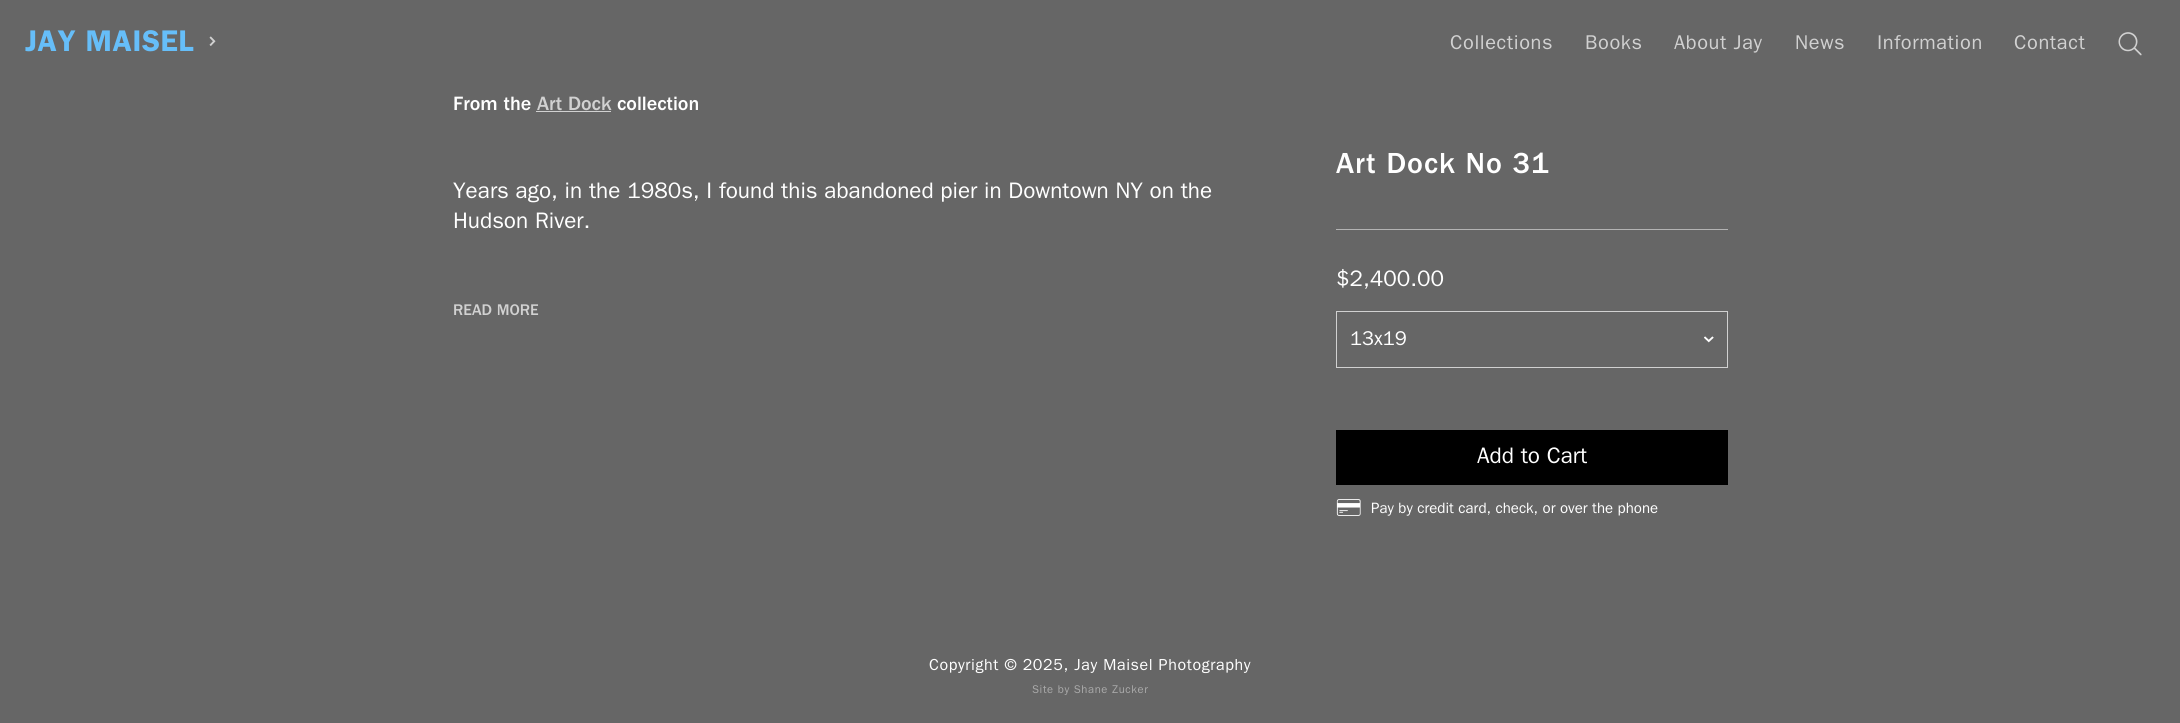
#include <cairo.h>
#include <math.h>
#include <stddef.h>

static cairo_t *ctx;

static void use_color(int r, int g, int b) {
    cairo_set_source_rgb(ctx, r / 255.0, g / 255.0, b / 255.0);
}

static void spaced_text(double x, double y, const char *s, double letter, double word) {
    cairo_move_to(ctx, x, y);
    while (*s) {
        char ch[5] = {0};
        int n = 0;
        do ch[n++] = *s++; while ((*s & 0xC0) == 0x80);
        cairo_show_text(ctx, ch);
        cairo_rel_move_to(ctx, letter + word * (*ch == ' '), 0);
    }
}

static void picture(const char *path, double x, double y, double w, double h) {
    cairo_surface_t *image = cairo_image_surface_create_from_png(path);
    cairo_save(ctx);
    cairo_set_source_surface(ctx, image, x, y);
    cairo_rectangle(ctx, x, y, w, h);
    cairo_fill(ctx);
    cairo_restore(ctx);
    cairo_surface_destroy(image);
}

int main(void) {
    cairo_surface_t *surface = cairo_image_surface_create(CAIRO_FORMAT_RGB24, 2180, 723);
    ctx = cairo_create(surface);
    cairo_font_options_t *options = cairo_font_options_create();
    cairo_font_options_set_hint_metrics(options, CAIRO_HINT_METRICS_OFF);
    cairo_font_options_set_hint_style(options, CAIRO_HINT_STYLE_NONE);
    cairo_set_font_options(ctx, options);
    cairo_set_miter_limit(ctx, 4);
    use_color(102, 102, 102);
    cairo_paint(ctx);
    cairo_select_font_face(ctx, "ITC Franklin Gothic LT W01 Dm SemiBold", CAIRO_FONT_SLANT_NORMAL, CAIRO_FONT_WEIGHT_NORMAL);
    cairo_set_font_size(ctx, 30);
    use_color(102, 190, 249);
    spaced_text(25, 51, "JAY MAISEL", 0.6, 0);
    picture("img1.png", 209, 36, 7, 10);
    cairo_select_font_face(ctx, "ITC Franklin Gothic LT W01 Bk", CAIRO_FONT_SLANT_NORMAL, CAIRO_FONT_WEIGHT_NORMAL);
    cairo_set_font_size(ctx, 20);
    use_color(209, 209, 209);
    spaced_text(1450, 49, "Collections", 0.6, 0);
    spaced_text(1585, 49, "Books", 0.6, 0);
    spaced_text(1674, 49, "About Jay", 0.6, 0);
    spaced_text(1795, 49, "News", 0.6, 0);
    spaced_text(1877, 49, "Information", 0.6, 0);
    spaced_text(2014, 49, "Contact", 0.6, 0);
    picture("img2.png", 2118, 32, 24, 24);
    cairo_select_font_face(ctx, "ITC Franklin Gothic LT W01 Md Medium", CAIRO_FONT_SLANT_NORMAL, CAIRO_FONT_WEIGHT_NORMAL);
    use_color(255, 255, 255);
    cairo_move_to(ctx, 453, 110);
    cairo_show_text(ctx, "From the");
    use_color(209, 209, 209);
    cairo_move_to(ctx, 537, 110);
    cairo_show_text(ctx, "Art Dock");
    cairo_rectangle(ctx, 536, 111, 75, 1);
    cairo_fill(ctx);
    use_color(255, 255, 255);
    cairo_move_to(ctx, 617, 110);
    cairo_show_text(ctx, "collection");
    cairo_select_font_face(ctx, "ITC Franklin Gothic LT W01 Bk", CAIRO_FONT_SLANT_NORMAL, CAIRO_FONT_WEIGHT_NORMAL);
    cairo_set_font_size(ctx, 22.5);
    cairo_move_to(ctx, 453, 198);
    cairo_show_text(ctx, "Years ago, in the 1980s, I found this abandoned pier in Downtown NY on the");
    cairo_move_to(ctx, 453, 228);
    cairo_show_text(ctx, "Hudson River.");
    cairo_select_font_face(ctx, "ITC Franklin Gothic LT W01 Md Medium", CAIRO_FONT_SLANT_NORMAL, CAIRO_FONT_WEIGHT_NORMAL);
    cairo_set_font_size(ctx, 16);
    use_color(209, 209, 209);
    cairo_move_to(ctx, 453, 315);
    cairo_show_text(ctx, "READ MORE");
    use_color(179, 179, 179);
    cairo_rectangle(ctx, 1336, 229, 392, 1);
    cairo_fill(ctx);
    cairo_set_font_size(ctx, 30);
    use_color(255, 255, 255);
    spaced_text(1336, 173, "Art Dock No 31", 1, 0);
    cairo_select_font_face(ctx, "ITC Franklin Gothic LT W01 Bk", CAIRO_FONT_SLANT_NORMAL, CAIRO_FONT_WEIGHT_NORMAL);
    cairo_set_font_size(ctx, 22.5);
    cairo_move_to(ctx, 1336, 286);
    cairo_show_text(ctx, "$2,400.00");
    picture("img3.png", 1704, 336, 10, 7);
    cairo_rectangle(ctx, 1336.5, 311.5, 391, 56);
    use_color(209, 209, 209);
    cairo_set_line_width(ctx, 1);
    cairo_stroke(ctx);
    cairo_set_font_size(ctx, 20);
    use_color(255, 255, 255);
    cairo_move_to(ctx, 1350, 345);
    cairo_show_text(ctx, "13x19");
    use_color(0, 0, 0);
    cairo_rectangle(ctx, 1336, 430, 392, 55);
    cairo_fill(ctx);
    cairo_set_font_size(ctx, 22.5);
    use_color(255, 255, 255);
    cairo_move_to(ctx, 1477, 463);
    cairo_show_text(ctx, "Add to Cart");
    picture("img4.png", 1336, 499, 25, 17);
    cairo_set_font_size(ctx, 15);
    cairo_move_to(ctx, 1371, 513);
    cairo_show_text(ctx, "Pay by credit card, check, or over the phone");
    cairo_set_font_size(ctx, 16);
    spaced_text(929, 670, "Copyright © 2025, Jay Maisel Photography", 0.6, 0);
    cairo_set_font_size(ctx, 11.25);
    use_color(170, 170, 170);
    spaced_text(1032, 693, "Site by Shane Zucker", 0.6, 0);
    cairo_surface_write_to_png(surface, "result.png");
    cairo_font_options_destroy(options);
    cairo_destroy(ctx);
    cairo_surface_destroy(surface);
    return 0;
}
